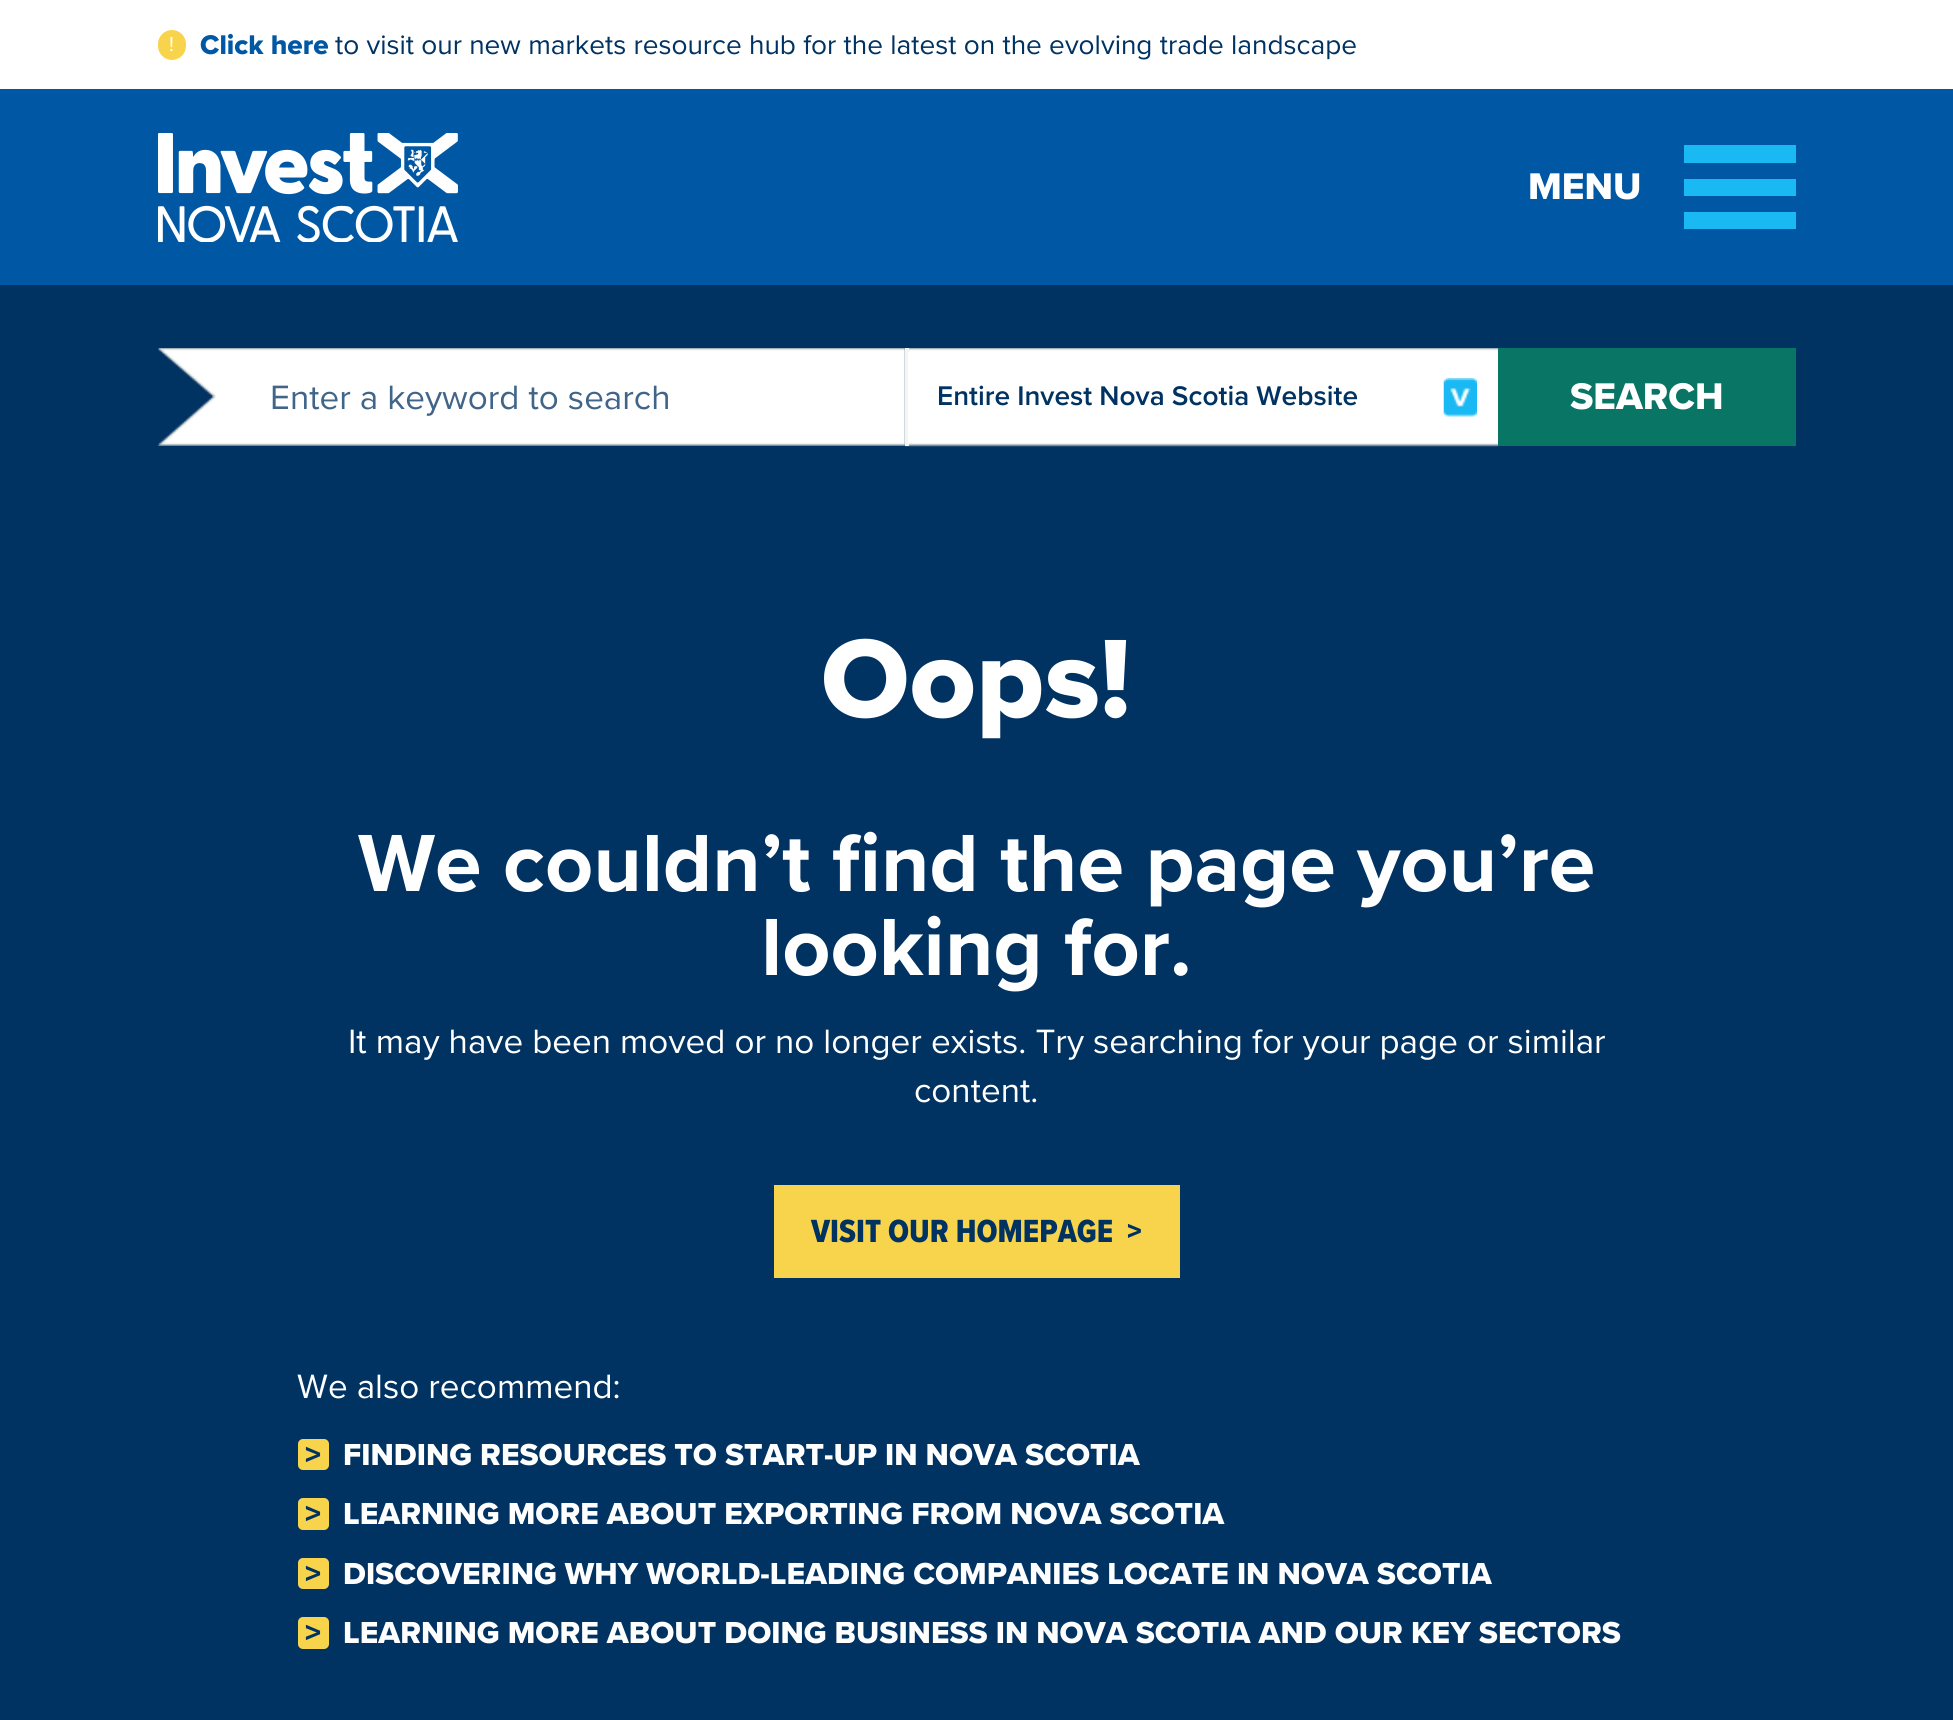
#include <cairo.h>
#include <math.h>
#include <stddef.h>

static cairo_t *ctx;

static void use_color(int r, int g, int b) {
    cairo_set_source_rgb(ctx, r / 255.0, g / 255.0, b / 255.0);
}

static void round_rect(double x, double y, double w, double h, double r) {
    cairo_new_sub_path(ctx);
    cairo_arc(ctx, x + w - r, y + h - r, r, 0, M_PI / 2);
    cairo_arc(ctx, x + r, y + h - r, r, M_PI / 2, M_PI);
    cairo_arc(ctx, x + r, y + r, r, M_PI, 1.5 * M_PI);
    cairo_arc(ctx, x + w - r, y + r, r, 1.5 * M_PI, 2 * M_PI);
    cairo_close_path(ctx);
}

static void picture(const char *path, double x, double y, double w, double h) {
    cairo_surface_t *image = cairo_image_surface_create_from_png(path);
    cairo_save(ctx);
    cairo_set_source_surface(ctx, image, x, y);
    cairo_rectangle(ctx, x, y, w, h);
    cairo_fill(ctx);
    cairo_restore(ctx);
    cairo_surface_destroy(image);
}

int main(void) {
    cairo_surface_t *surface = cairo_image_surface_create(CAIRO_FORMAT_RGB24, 1953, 1720);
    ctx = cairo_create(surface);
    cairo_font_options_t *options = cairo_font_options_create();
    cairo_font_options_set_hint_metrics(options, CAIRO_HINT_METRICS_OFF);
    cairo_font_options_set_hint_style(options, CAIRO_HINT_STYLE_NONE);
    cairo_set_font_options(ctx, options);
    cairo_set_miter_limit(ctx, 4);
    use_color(0, 50, 98);
    cairo_paint(ctx);
    use_color(255, 255, 255);
    cairo_rectangle(ctx, 0, 0, 1953, 89);
    cairo_fill(ctx);
    use_color(248, 212, 76);
    round_rect(158, 30, 28, 30, 14);
    cairo_fill(ctx);
    cairo_select_font_face(ctx, "Proxima Nova", CAIRO_FONT_SLANT_NORMAL, CAIRO_FONT_WEIGHT_NORMAL);
    cairo_set_font_size(ctx, 21);
    use_color(255, 255, 255);
    cairo_move_to(ctx, 169, 51);
    cairo_show_text(ctx, "!");
    cairo_select_font_face(ctx, "Proxima Nova ExtraBold", CAIRO_FONT_SLANT_NORMAL, CAIRO_FONT_WEIGHT_NORMAL);
    cairo_set_font_size(ctx, 28);
    use_color(0, 88, 164);
    cairo_move_to(ctx, 200, 54);
    cairo_show_text(ctx, "Click here");
    cairo_select_font_face(ctx, "Proxima Nova", CAIRO_FONT_SLANT_NORMAL, CAIRO_FONT_WEIGHT_NORMAL);
    use_color(0, 50, 98);
    cairo_move_to(ctx, 335, 54);
    cairo_show_text(ctx, "to visit our new markets resource hub for the latest on the evolving trade landscape");
    use_color(0, 88, 164);
    cairo_rectangle(ctx, 0, 89, 1953, 196);
    cairo_fill(ctx);
    picture("img1.png", 158, 133, 300, 109);
    cairo_select_font_face(ctx, "Proxima Nova ExtraBold", CAIRO_FONT_SLANT_NORMAL, CAIRO_FONT_WEIGHT_NORMAL);
    cairo_set_font_size(ctx, 38.5);
    use_color(255, 255, 255);
    cairo_move_to(ctx, 1528, 199);
    cairo_show_text(ctx, "MENU");
    use_color(27, 185, 244);
    cairo_rectangle(ctx, 1684, 145, 112, 18);
    cairo_fill(ctx);
    cairo_rectangle(ctx, 1684, 179, 112, 17);
    cairo_fill(ctx);
    cairo_rectangle(ctx, 1684, 212, 112, 17);
    cairo_fill(ctx);
    picture("img2.png", 158, 348, 747, 98);
    cairo_select_font_face(ctx, "Proxima Nova", CAIRO_FONT_SLANT_NORMAL, CAIRO_FONT_WEIGHT_NORMAL);
    cairo_set_font_size(ctx, 35);
    use_color(64, 101, 137);
    cairo_move_to(ctx, 270, 409);
    cairo_show_text(ctx, "Enter a keyword to search");
    picture("img3.png", 904, 348, 594, 99);
    use_color(245, 244, 238);
    cairo_rectangle(ctx, 905, 348, 4, 98);
    cairo_fill(ctx);
    use_color(255, 255, 255);
    cairo_rectangle(ctx, 908, 352, 590, 91);
    cairo_fill(ctx);
    picture("img4.png", 1443, 378, 34, 39);
    cairo_select_font_face(ctx, "Proxima Nova SemiBold", CAIRO_FONT_SLANT_NORMAL, CAIRO_FONT_WEIGHT_NORMAL);
    cairo_set_font_size(ctx, 28);
    use_color(0, 50, 98);
    cairo_move_to(ctx, 937, 405);
    cairo_show_text(ctx, "Entire Invest Nova Scotia Website");
    use_color(8, 117, 101);
    cairo_rectangle(ctx, 1498, 348, 298, 98);
    cairo_fill(ctx);
    cairo_select_font_face(ctx, "Proxima Nova ExtraBold", CAIRO_FONT_SLANT_NORMAL, CAIRO_FONT_WEIGHT_NORMAL);
    cairo_set_font_size(ctx, 38.5);
    use_color(255, 255, 255);
    cairo_move_to(ctx, 1570, 409);
    cairo_show_text(ctx, "SEARCH");
    cairo_set_font_size(ctx, 115.5);
    cairo_move_to(ctx, 821, 717);
    cairo_show_text(ctx, "Oops!");
    cairo_select_font_face(ctx, "Proxima Nova", CAIRO_FONT_SLANT_NORMAL, CAIRO_FONT_WEIGHT_BOLD);
    cairo_set_font_size(ctx, 84);
    cairo_move_to(ctx, 358, 891);
    cairo_show_text(ctx, "We couldn’t find the page you’re");
    cairo_move_to(ctx, 761, 975);
    cairo_show_text(ctx, "looking for.");
    cairo_select_font_face(ctx, "Proxima Nova", CAIRO_FONT_SLANT_NORMAL, CAIRO_FONT_WEIGHT_NORMAL);
    cairo_set_font_size(ctx, 35);
    cairo_move_to(ctx, 348, 1053);
    cairo_show_text(ctx, "It may have been moved or no longer exists. Try searching for your page or similar");
    cairo_move_to(ctx, 914, 1102);
    cairo_show_text(ctx, "content.");
    use_color(248, 212, 76);
    cairo_rectangle(ctx, 774, 1185, 406, 93);
    cairo_fill(ctx);
    cairo_select_font_face(ctx, "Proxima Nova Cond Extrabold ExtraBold", CAIRO_FONT_SLANT_NORMAL, CAIRO_FONT_WEIGHT_NORMAL);
    cairo_set_font_size(ctx, 33.25);
    use_color(0, 50, 98);
    cairo_move_to(ctx, 811, 1242);
    cairo_show_text(ctx, "VISIT OUR HOMEPAGE");
    cairo_move_to(ctx, 1127, 1242);
    cairo_show_text(ctx, ">");
    cairo_select_font_face(ctx, "Proxima Nova", CAIRO_FONT_SLANT_NORMAL, CAIRO_FONT_WEIGHT_NORMAL);
    cairo_set_font_size(ctx, 35);
    use_color(255, 255, 255);
    cairo_move_to(ctx, 297, 1398);
    cairo_show_text(ctx, "We also recommend:");
    use_color(248, 212, 76);
    round_rect(298, 1439, 31, 31, 5);
    cairo_fill(ctx);
    cairo_select_font_face(ctx, "Proxima Nova ExtraBold", CAIRO_FONT_SLANT_NORMAL, CAIRO_FONT_WEIGHT_NORMAL);
    cairo_set_font_size(ctx, 31.5);
    use_color(0, 50, 98);
    cairo_move_to(ctx, 305, 1465);
    cairo_show_text(ctx, ">");
    use_color(255, 255, 255);
    cairo_move_to(ctx, 343, 1465);
    cairo_show_text(ctx, "FINDING RESOURCES TO START-UP IN NOVA SCOTIA");
    use_color(248, 212, 76);
    round_rect(298, 1498, 31, 32, 5);
    cairo_fill(ctx);
    use_color(0, 50, 98);
    cairo_move_to(ctx, 305, 1524);
    cairo_show_text(ctx, ">");
    use_color(255, 255, 255);
    cairo_move_to(ctx, 343, 1524);
    cairo_show_text(ctx, "LEARNING MORE ABOUT EXPORTING FROM NOVA SCOTIA");
    use_color(248, 212, 76);
    round_rect(298, 1558, 31, 31, 5);
    cairo_fill(ctx);
    use_color(0, 50, 98);
    cairo_move_to(ctx, 305, 1584);
    cairo_show_text(ctx, ">");
    use_color(255, 255, 255);
    cairo_move_to(ctx, 343, 1584);
    cairo_show_text(ctx, "DISCOVERING WHY WORLD-LEADING COMPANIES LOCATE IN NOVA SCOTIA");
    use_color(248, 212, 76);
    round_rect(298, 1617, 31, 32, 5);
    cairo_fill(ctx);
    use_color(0, 50, 98);
    cairo_move_to(ctx, 305, 1643);
    cairo_show_text(ctx, ">");
    use_color(255, 255, 255);
    cairo_move_to(ctx, 343, 1643);
    cairo_show_text(ctx, "LEARNING MORE ABOUT DOING BUSINESS IN NOVA SCOTIA AND OUR KEY SECTORS");
    cairo_surface_write_to_png(surface, "result.png");
    cairo_font_options_destroy(options);
    cairo_destroy(ctx);
    cairo_surface_destroy(surface);
    return 0;
}
